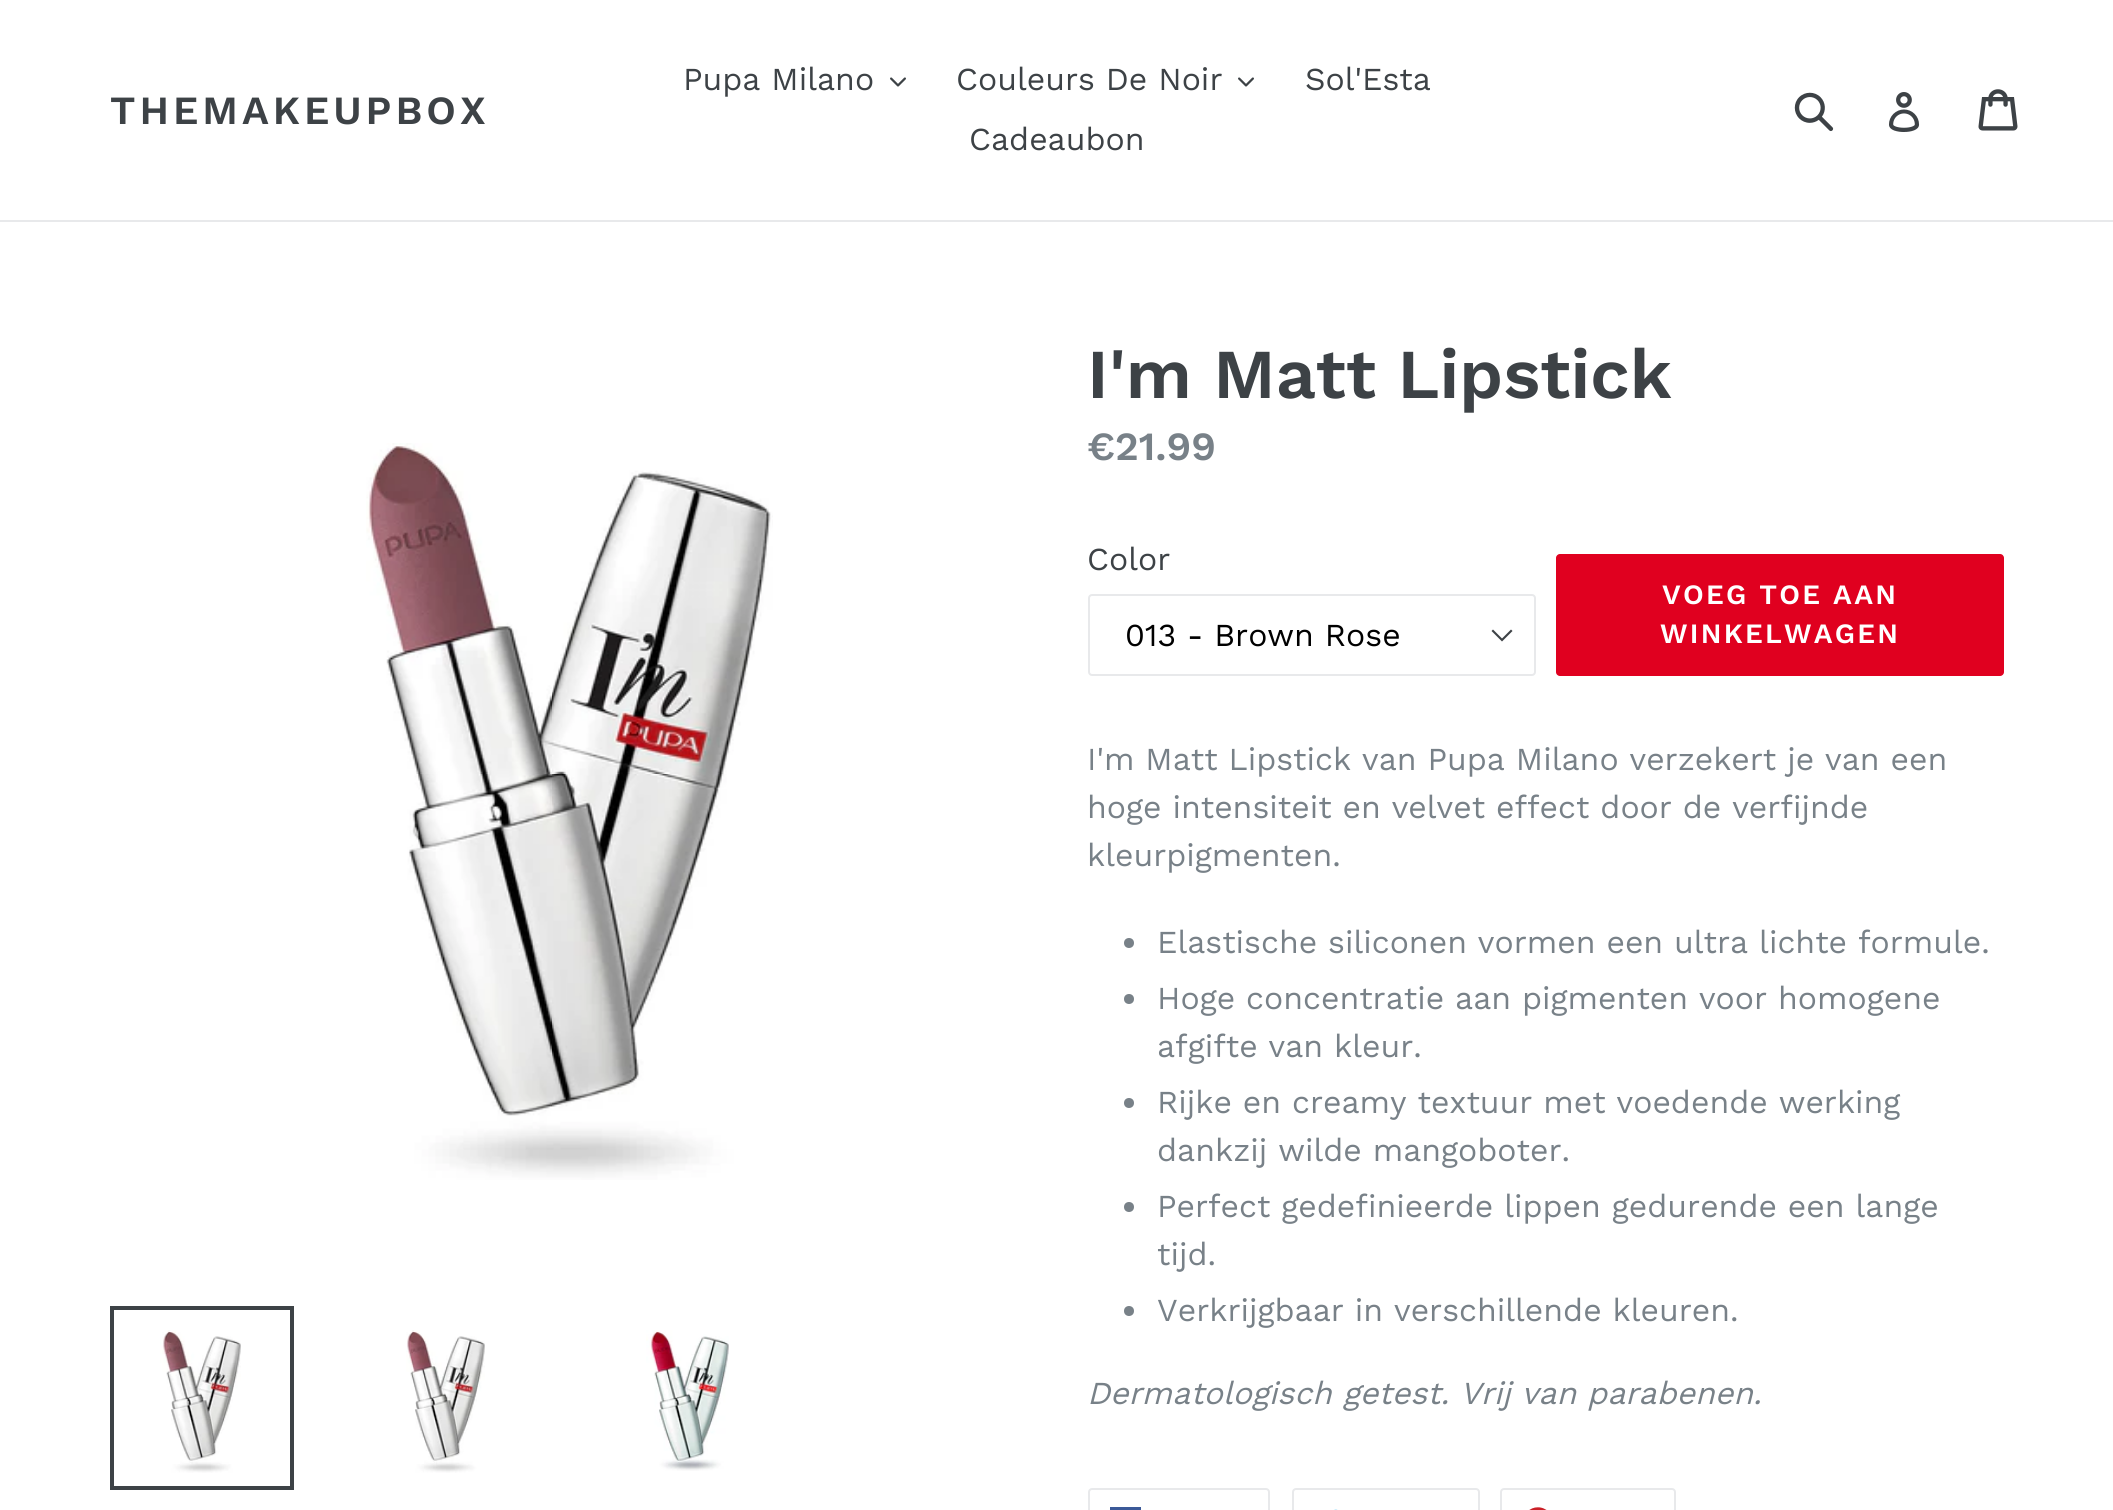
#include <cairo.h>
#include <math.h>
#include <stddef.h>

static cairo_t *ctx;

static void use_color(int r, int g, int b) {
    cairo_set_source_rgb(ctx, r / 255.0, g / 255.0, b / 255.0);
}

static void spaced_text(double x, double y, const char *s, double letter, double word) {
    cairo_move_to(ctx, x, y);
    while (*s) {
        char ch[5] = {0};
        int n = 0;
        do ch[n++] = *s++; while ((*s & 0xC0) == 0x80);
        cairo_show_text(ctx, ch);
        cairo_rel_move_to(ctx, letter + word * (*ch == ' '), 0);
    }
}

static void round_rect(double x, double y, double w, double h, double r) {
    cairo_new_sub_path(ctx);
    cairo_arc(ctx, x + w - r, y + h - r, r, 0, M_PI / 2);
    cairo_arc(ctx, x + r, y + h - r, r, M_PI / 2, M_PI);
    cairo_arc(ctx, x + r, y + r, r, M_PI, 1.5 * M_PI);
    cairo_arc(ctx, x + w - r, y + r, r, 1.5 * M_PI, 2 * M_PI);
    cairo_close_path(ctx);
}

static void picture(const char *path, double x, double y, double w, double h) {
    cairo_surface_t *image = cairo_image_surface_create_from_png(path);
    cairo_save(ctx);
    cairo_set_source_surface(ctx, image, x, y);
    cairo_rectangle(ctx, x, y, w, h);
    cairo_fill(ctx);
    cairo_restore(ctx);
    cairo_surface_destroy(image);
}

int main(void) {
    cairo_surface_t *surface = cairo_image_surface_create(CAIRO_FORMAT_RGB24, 2113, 1510);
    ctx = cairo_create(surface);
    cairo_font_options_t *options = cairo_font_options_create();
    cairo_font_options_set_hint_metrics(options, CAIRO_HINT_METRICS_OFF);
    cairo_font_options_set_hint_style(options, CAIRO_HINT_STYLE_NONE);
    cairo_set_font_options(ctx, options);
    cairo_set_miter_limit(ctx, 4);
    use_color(255, 255, 255);
    cairo_paint(ctx);
    use_color(232, 233, 235);
    cairo_rectangle(ctx, 0, 220, 2113, 2);
    cairo_fill(ctx);
    cairo_select_font_face(ctx, "Work Sans SemiBold", CAIRO_FONT_SLANT_NORMAL, CAIRO_FONT_WEIGHT_NORMAL);
    cairo_set_font_size(ctx, 40);
    use_color(61, 66, 70);
    spaced_text(110, 124, "THEMAKEUPBOX", 4, 0);
    cairo_select_font_face(ctx, "Work Sans", CAIRO_FONT_SLANT_NORMAL, CAIRO_FONT_WEIGHT_NORMAL);
    cairo_set_font_size(ctx, 32);
    cairo_move_to(ctx, 683, 90);
    cairo_show_text(ctx, "Pupa Milano");
    picture("img1.png", 890, 77, 16, 10);
    cairo_move_to(ctx, 956, 90);
    cairo_show_text(ctx, "Couleurs De Noir");
    picture("img1.png", 1238, 77, 16, 10);
    cairo_move_to(ctx, 1305, 90);
    cairo_show_text(ctx, "Sol'Esta");
    cairo_move_to(ctx, 969, 150);
    cairo_show_text(ctx, "Cadeaubon");
    picture("img2.png", 1794, 92, 40, 40);
    picture("img3.png", 1889, 92, 31, 40);
    picture("img4.png", 1978, 89, 40, 42);
    picture("img5.png", 366, 443, 407, 737);
    cairo_rectangle(ctx, 112, 1308, 180, 180);
    cairo_set_line_width(ctx, 4);
    cairo_stroke(ctx);
    picture("img6.png", 160, 1330, 81, 143);
    picture("img7.png", 406, 1330, 79, 143);
    picture("img8.png", 646, 1330, 83, 141);
    cairo_select_font_face(ctx, "Work Sans SemiBold", CAIRO_FONT_SLANT_NORMAL, CAIRO_FONT_WEIGHT_NORMAL);
    cairo_set_font_size(ctx, 70);
    cairo_move_to(ctx, 1087, 398);
    cairo_show_text(ctx, "I'm Matt Lipstick");
    cairo_set_font_size(ctx, 40);
    use_color(120, 129, 136);
    cairo_move_to(ctx, 1087, 460);
    cairo_show_text(ctx, "€21.99");
    cairo_select_font_face(ctx, "Work Sans", CAIRO_FONT_SLANT_NORMAL, CAIRO_FONT_WEIGHT_NORMAL);
    cairo_set_font_size(ctx, 32);
    use_color(61, 66, 70);
    cairo_move_to(ctx, 1087, 570);
    cairo_show_text(ctx, "Color");
    cairo_new_path(ctx);
    cairo_move_to(ctx, 1502, 641.5);
    cairo_line_to(ctx, 1491.5, 631);
    cairo_line_to(ctx, 1493, 629.5);
    cairo_line_to(ctx, 1502, 638.5);
    cairo_line_to(ctx, 1511, 629.5);
    cairo_line_to(ctx, 1512.5, 631);
    cairo_close_path(ctx);
    cairo_fill(ctx);
    round_rect(1089, 595, 446, 80, 3);
    use_color(232, 233, 235);
    cairo_set_line_width(ctx, 2);
    cairo_stroke(ctx);
    use_color(0, 0, 0);
    cairo_move_to(ctx, 1125, 646);
    cairo_show_text(ctx, "013 - Brown Rose");
    use_color(224, 0, 31);
    round_rect(1556, 554, 448, 122, 4);
    cairo_fill(ctx);
    cairo_select_font_face(ctx, "Work Sans SemiBold", CAIRO_FONT_SLANT_NORMAL, CAIRO_FONT_WEIGHT_NORMAL);
    cairo_set_font_size(ctx, 28);
    use_color(255, 255, 255);
    spaced_text(1662, 604, "VOEG TOE AAN", 2.25, 0);
    spaced_text(1660, 643, "WINKELWAGEN", 2.25, 0);
    cairo_select_font_face(ctx, "Work Sans", CAIRO_FONT_SLANT_NORMAL, CAIRO_FONT_WEIGHT_NORMAL);
    cairo_set_font_size(ctx, 32);
    use_color(120, 129, 136);
    cairo_move_to(ctx, 1087, 770);
    cairo_show_text(ctx, "I'm Matt Lipstick van Pupa Milano verzekert je van een");
    cairo_move_to(ctx, 1087, 818);
    cairo_show_text(ctx, "hoge intensiteit en velvet effect door de verfijnde");
    cairo_move_to(ctx, 1087, 866);
    cairo_show_text(ctx, "kleurpigmenten.");
    cairo_new_path(ctx);
    cairo_arc(ctx, 1129, 943, 5, 0, 2 * M_PI);
    cairo_fill(ctx);
    cairo_move_to(ctx, 1157, 953);
    cairo_show_text(ctx, "Elastische siliconen vormen een ultra lichte formule.");
    cairo_new_path(ctx);
    cairo_arc(ctx, 1129, 999, 5, 0, 2 * M_PI);
    cairo_fill(ctx);
    cairo_move_to(ctx, 1157, 1009);
    cairo_show_text(ctx, "Hoge concentratie aan pigmenten voor homogene");
    cairo_move_to(ctx, 1157, 1057);
    cairo_show_text(ctx, "afgifte van kleur.");
    cairo_new_path(ctx);
    cairo_arc(ctx, 1129, 1103, 5, 0, 2 * M_PI);
    cairo_fill(ctx);
    cairo_move_to(ctx, 1157, 1113);
    cairo_show_text(ctx, "Rijke en creamy textuur met voedende werking");
    cairo_move_to(ctx, 1157, 1161);
    cairo_show_text(ctx, "dankzij wilde mangoboter.");
    cairo_new_path(ctx);
    cairo_arc(ctx, 1129, 1207, 5, 0, 2 * M_PI);
    cairo_fill(ctx);
    cairo_move_to(ctx, 1157, 1217);
    cairo_show_text(ctx, "Perfect gedefinieerde lippen gedurende een lange");
    cairo_move_to(ctx, 1157, 1265);
    cairo_show_text(ctx, "tijd.");
    cairo_new_path(ctx);
    cairo_arc(ctx, 1129, 1311, 5, 0, 2 * M_PI);
    cairo_fill(ctx);
    cairo_move_to(ctx, 1157, 1321);
    cairo_show_text(ctx, "Verkrijgbaar in verschillende kleuren.");
    cairo_select_font_face(ctx, "Work Sans", CAIRO_FONT_SLANT_ITALIC, CAIRO_FONT_WEIGHT_NORMAL);
    cairo_move_to(ctx, 1087, 1404);
    cairo_show_text(ctx, "Dermatologisch getest. Vrij van parabenen.");
    round_rect(1089, 1489, 180, 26, 3);
    use_color(232, 233, 235);
    cairo_stroke(ctx);
    use_color(59, 89, 152);
    cairo_rectangle(ctx, 1110, 1507, 31, 3);
    cairo_fill(ctx);
    round_rect(1293, 1489, 186, 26, 3);
    use_color(232, 233, 235);
    cairo_stroke(ctx);
    picture("img9.png", 1334, 1509, 4, 1);
    round_rect(1501, 1489, 174, 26, 3);
    cairo_stroke(ctx);
    picture("img10.png", 1529, 1507, 18, 3);
    cairo_surface_write_to_png(surface, "result.png");
    cairo_font_options_destroy(options);
    cairo_destroy(ctx);
    cairo_surface_destroy(surface);
    return 0;
}
